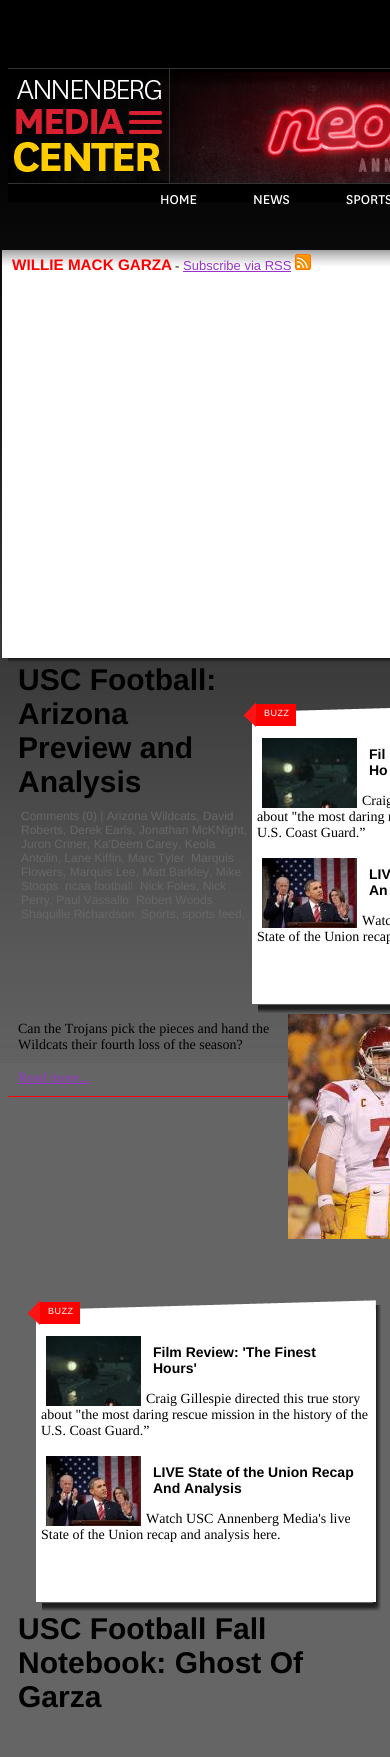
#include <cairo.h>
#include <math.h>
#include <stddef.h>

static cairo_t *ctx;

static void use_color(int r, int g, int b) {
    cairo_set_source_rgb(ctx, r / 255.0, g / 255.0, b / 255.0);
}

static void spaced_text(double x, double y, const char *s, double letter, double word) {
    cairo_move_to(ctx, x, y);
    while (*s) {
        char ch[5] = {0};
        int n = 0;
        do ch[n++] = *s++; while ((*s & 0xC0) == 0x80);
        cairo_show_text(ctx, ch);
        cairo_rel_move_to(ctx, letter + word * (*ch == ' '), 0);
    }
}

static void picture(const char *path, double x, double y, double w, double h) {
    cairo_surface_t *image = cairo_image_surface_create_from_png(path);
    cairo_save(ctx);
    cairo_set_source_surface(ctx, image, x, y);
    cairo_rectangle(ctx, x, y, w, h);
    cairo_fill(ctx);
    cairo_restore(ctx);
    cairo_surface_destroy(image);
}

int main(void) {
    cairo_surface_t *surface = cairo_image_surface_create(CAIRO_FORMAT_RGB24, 390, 1757);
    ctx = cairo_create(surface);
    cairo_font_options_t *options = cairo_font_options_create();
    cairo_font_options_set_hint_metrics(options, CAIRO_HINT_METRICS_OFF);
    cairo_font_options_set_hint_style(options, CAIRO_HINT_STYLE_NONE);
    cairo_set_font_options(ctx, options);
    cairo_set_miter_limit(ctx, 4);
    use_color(101, 101, 101);
    cairo_paint(ctx);
    picture("img1.png", 0, 0, 390, 1063);
    picture("img2.png", 8, 72, 382, 109);
    use_color(51, 51, 51);
    cairo_rectangle(ctx, 8, 68, 382, 1);
    cairo_fill(ctx);
    cairo_rectangle(ctx, 169, 69, 1, 114);
    cairo_fill(ctx);
    picture("img3.png", 14, 80, 148, 92);
    picture("img4.png", 170, 76, 220, 107);
    use_color(0, 0, 0);
    cairo_rectangle(ctx, 8, 184, 382, 18);
    cairo_fill(ctx);
    use_color(51, 51, 51);
    cairo_rectangle(ctx, 8, 183, 382, 1);
    cairo_fill(ctx);
    cairo_select_font_face(ctx, "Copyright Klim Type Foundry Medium", CAIRO_FONT_SLANT_NORMAL, CAIRO_FONT_WEIGHT_NORMAL);
    cairo_set_font_size(ctx, 15);
    use_color(255, 255, 255);
    cairo_move_to(ctx, 160, 204);
    cairo_show_text(ctx, "HOME");
    cairo_move_to(ctx, 253, 204);
    cairo_show_text(ctx, "NEWS");
    cairo_move_to(ctx, 346, 204);
    cairo_show_text(ctx, "SPORTS");
    picture("img5.png", 8, 658, 382, 4);
    cairo_rectangle(ctx, 2, 266, 388, 392);
    cairo_fill(ctx);
    picture("img6.png", 2, 250, 388, 16);
    cairo_select_font_face(ctx, "Liberation Sans", CAIRO_FONT_SLANT_NORMAL, CAIRO_FONT_WEIGHT_BOLD);
    cairo_set_font_size(ctx, 15.25);
    use_color(255, 0, 0);
    cairo_move_to(ctx, 12, 270);
    cairo_show_text(ctx, "WILLIE MACK GARZA");
    cairo_select_font_face(ctx, "Liberation Serif", CAIRO_FONT_SLANT_NORMAL, CAIRO_FONT_WEIGHT_NORMAL);
    cairo_set_font_size(ctx, 13);
    use_color(0, 0, 0);
    cairo_move_to(ctx, 175, 270);
    cairo_show_text(ctx, "-");
    use_color(153, 51, 204);
    cairo_rectangle(ctx, 183, 271, 108, 1);
    cairo_fill(ctx);
    cairo_select_font_face(ctx, "Liberation Sans", CAIRO_FONT_SLANT_NORMAL, CAIRO_FONT_WEIGHT_NORMAL);
    cairo_move_to(ctx, 183, 270);
    cairo_show_text(ctx, "Subscribe via RSS");
    picture("img7.png", 295, 254, 16, 16);
    cairo_select_font_face(ctx, "Liberation Sans", CAIRO_FONT_SLANT_NORMAL, CAIRO_FONT_WEIGHT_BOLD);
    cairo_set_font_size(ctx, 30);
    use_color(0, 0, 0);
    cairo_move_to(ctx, 18, 690);
    cairo_show_text(ctx, "USC Football:");
    cairo_move_to(ctx, 18, 724);
    cairo_show_text(ctx, "Arizona");
    cairo_move_to(ctx, 18, 758);
    cairo_show_text(ctx, "Preview and");
    cairo_move_to(ctx, 18, 792);
    cairo_show_text(ctx, "Analysis");
    cairo_select_font_face(ctx, "Liberation Sans", CAIRO_FONT_SLANT_NORMAL, CAIRO_FONT_WEIGHT_NORMAL);
    cairo_set_font_size(ctx, 12);
    use_color(102, 102, 102);
    cairo_move_to(ctx, 21, 820);
    cairo_show_text(ctx, "Comments (0) | Arizona Wildcats, David");
    cairo_move_to(ctx, 21, 834);
    cairo_show_text(ctx, "Roberts, Derek Earls, Jonathan McKNight,");
    cairo_move_to(ctx, 21, 848);
    cairo_show_text(ctx, "Juron Criner, Ka'Deem Carey, Keola");
    cairo_move_to(ctx, 21, 862);
    cairo_show_text(ctx, "Antolin, Lane Kiffin, Marc Tyler");
    cairo_move_to(ctx, 191, 862);
    cairo_show_text(ctx, "Marquis");
    cairo_move_to(ctx, 21, 876);
    cairo_show_text(ctx, "Flowers, Marquis Lee, Matt Barkley, Mike");
    cairo_move_to(ctx, 21, 890);
    cairo_show_text(ctx, "Stoops");
    cairo_move_to(ctx, 65, 890);
    cairo_show_text(ctx, "ncaa football");
    cairo_move_to(ctx, 140, 890);
    cairo_show_text(ctx, "Nick Foles, Nick");
    cairo_move_to(ctx, 21, 904);
    cairo_show_text(ctx, "Perry, Paul Vassallo");
    cairo_move_to(ctx, 136, 904);
    cairo_show_text(ctx, "Robert Woods");
    cairo_move_to(ctx, 21, 918);
    cairo_show_text(ctx, "Shaquille Richardson");
    cairo_move_to(ctx, 141, 918);
    cairo_show_text(ctx, "Sports, sports feed,");
    cairo_select_font_face(ctx, "Liberation Serif", CAIRO_FONT_SLANT_NORMAL, CAIRO_FONT_WEIGHT_NORMAL);
    cairo_set_font_size(ctx, 14);
    use_color(0, 0, 0);
    cairo_move_to(ctx, 18, 1033);
    cairo_show_text(ctx, "Can the Trojans pick the pieces and hand the");
    cairo_move_to(ctx, 18, 1049);
    cairo_show_text(ctx, "Wildcats their fourth loss of the season?");
    use_color(153, 51, 204);
    cairo_move_to(ctx, 18, 1082);
    cairo_show_text(ctx, "Read more...");
    cairo_rectangle(ctx, 18, 1083, 72, 1);
    cairo_fill(ctx);
    picture("img8.png", 288, 1014, 102, 225);
    picture("img9.png", 258, 1005, 132, 8);
    picture("img10.png", 296, 708, 94, 3);
    use_color(255, 255, 255);
    cairo_rectangle(ctx, 252, 711, 138, 293);
    cairo_fill(ctx);
    picture("img11.png", 243, 702, 13, 25);
    use_color(255, 0, 0);
    cairo_rectangle(ctx, 256, 704, 40, 22);
    cairo_fill(ctx);
    cairo_select_font_face(ctx, "Liberation Sans", CAIRO_FONT_SLANT_NORMAL, CAIRO_FONT_WEIGHT_NORMAL);
    cairo_set_font_size(ctx, 9);
    use_color(255, 255, 255);
    spaced_text(264, 716, "BUZZ", 0.5, 0);
    picture("img12.png", 262, 738, 95, 70);
    cairo_select_font_face(ctx, "Liberation Sans", CAIRO_FONT_SLANT_NORMAL, CAIRO_FONT_WEIGHT_BOLD);
    cairo_set_font_size(ctx, 14);
    use_color(0, 0, 0);
    cairo_move_to(ctx, 369, 759);
    cairo_show_text(ctx, "Fil");
    cairo_move_to(ctx, 369, 775);
    cairo_show_text(ctx, "Ho");
    cairo_select_font_face(ctx, "Liberation Serif", CAIRO_FONT_SLANT_NORMAL, CAIRO_FONT_WEIGHT_NORMAL);
    cairo_move_to(ctx, 362, 805);
    cairo_show_text(ctx, "Craig");
    cairo_move_to(ctx, 257, 821);
    cairo_show_text(ctx, "about \"the most daring r");
    cairo_move_to(ctx, 257, 837);
    cairo_show_text(ctx, "U.S. Coast Guard.”");
    picture("img13.png", 262, 858, 95, 70);
    cairo_select_font_face(ctx, "Liberation Sans", CAIRO_FONT_SLANT_NORMAL, CAIRO_FONT_WEIGHT_BOLD);
    cairo_move_to(ctx, 369, 879);
    cairo_show_text(ctx, "LIV");
    cairo_move_to(ctx, 369, 895);
    cairo_show_text(ctx, "An");
    cairo_select_font_face(ctx, "Liberation Serif", CAIRO_FONT_SLANT_NORMAL, CAIRO_FONT_WEIGHT_NORMAL);
    cairo_move_to(ctx, 362, 925);
    cairo_show_text(ctx, "Watc");
    cairo_move_to(ctx, 257, 941);
    cairo_show_text(ctx, "State of the Union recap");
    use_color(255, 0, 0);
    cairo_rectangle(ctx, 8, 1096, 280, 1);
    cairo_fill(ctx);
    picture("img14.png", 42, 1305, 339, 306);
    picture("img15.png", 80, 1300, 296, 9);
    use_color(255, 255, 255);
    cairo_rectangle(ctx, 36, 1309, 340, 293);
    cairo_fill(ctx);
    picture("img16.png", 27, 1300, 13, 25);
    use_color(255, 0, 0);
    cairo_rectangle(ctx, 40, 1302, 40, 22);
    cairo_fill(ctx);
    cairo_select_font_face(ctx, "Liberation Sans", CAIRO_FONT_SLANT_NORMAL, CAIRO_FONT_WEIGHT_NORMAL);
    cairo_set_font_size(ctx, 9);
    use_color(255, 255, 255);
    spaced_text(48, 1314, "BUZZ", 0.5, 0);
    picture("img12.png", 46, 1336, 95, 70);
    cairo_select_font_face(ctx, "Liberation Sans", CAIRO_FONT_SLANT_NORMAL, CAIRO_FONT_WEIGHT_BOLD);
    cairo_set_font_size(ctx, 14);
    use_color(0, 0, 0);
    cairo_move_to(ctx, 153, 1357);
    cairo_show_text(ctx, "Film Review: 'The Finest");
    cairo_move_to(ctx, 153, 1373);
    cairo_show_text(ctx, "Hours'");
    cairo_select_font_face(ctx, "Liberation Serif", CAIRO_FONT_SLANT_NORMAL, CAIRO_FONT_WEIGHT_NORMAL);
    cairo_move_to(ctx, 146, 1403);
    cairo_show_text(ctx, "Craig Gillespie directed this true story");
    cairo_move_to(ctx, 41, 1419);
    cairo_show_text(ctx, "about \"the most daring rescue mission in the history of the");
    cairo_move_to(ctx, 41, 1435);
    cairo_show_text(ctx, "U.S. Coast Guard.”");
    picture("img13.png", 46, 1456, 95, 70);
    cairo_select_font_face(ctx, "Liberation Sans", CAIRO_FONT_SLANT_NORMAL, CAIRO_FONT_WEIGHT_BOLD);
    cairo_move_to(ctx, 153, 1477);
    cairo_show_text(ctx, "LIVE State of the Union Recap");
    cairo_move_to(ctx, 153, 1493);
    cairo_show_text(ctx, "And Analysis");
    cairo_select_font_face(ctx, "Liberation Serif", CAIRO_FONT_SLANT_NORMAL, CAIRO_FONT_WEIGHT_NORMAL);
    cairo_move_to(ctx, 146, 1523);
    cairo_show_text(ctx, "Watch USC Annenberg Media's live");
    cairo_move_to(ctx, 41, 1539);
    cairo_show_text(ctx, "State of the Union recap and analysis here.");
    cairo_select_font_face(ctx, "Liberation Sans", CAIRO_FONT_SLANT_NORMAL, CAIRO_FONT_WEIGHT_BOLD);
    cairo_set_font_size(ctx, 30);
    cairo_move_to(ctx, 18, 1639);
    cairo_show_text(ctx, "USC Football Fall");
    cairo_move_to(ctx, 18, 1673);
    cairo_show_text(ctx, "Notebook: Ghost Of");
    cairo_move_to(ctx, 18, 1707);
    cairo_show_text(ctx, "Garza");
    cairo_surface_write_to_png(surface, "result.png");
    cairo_font_options_destroy(options);
    cairo_destroy(ctx);
    cairo_surface_destroy(surface);
    return 0;
}
